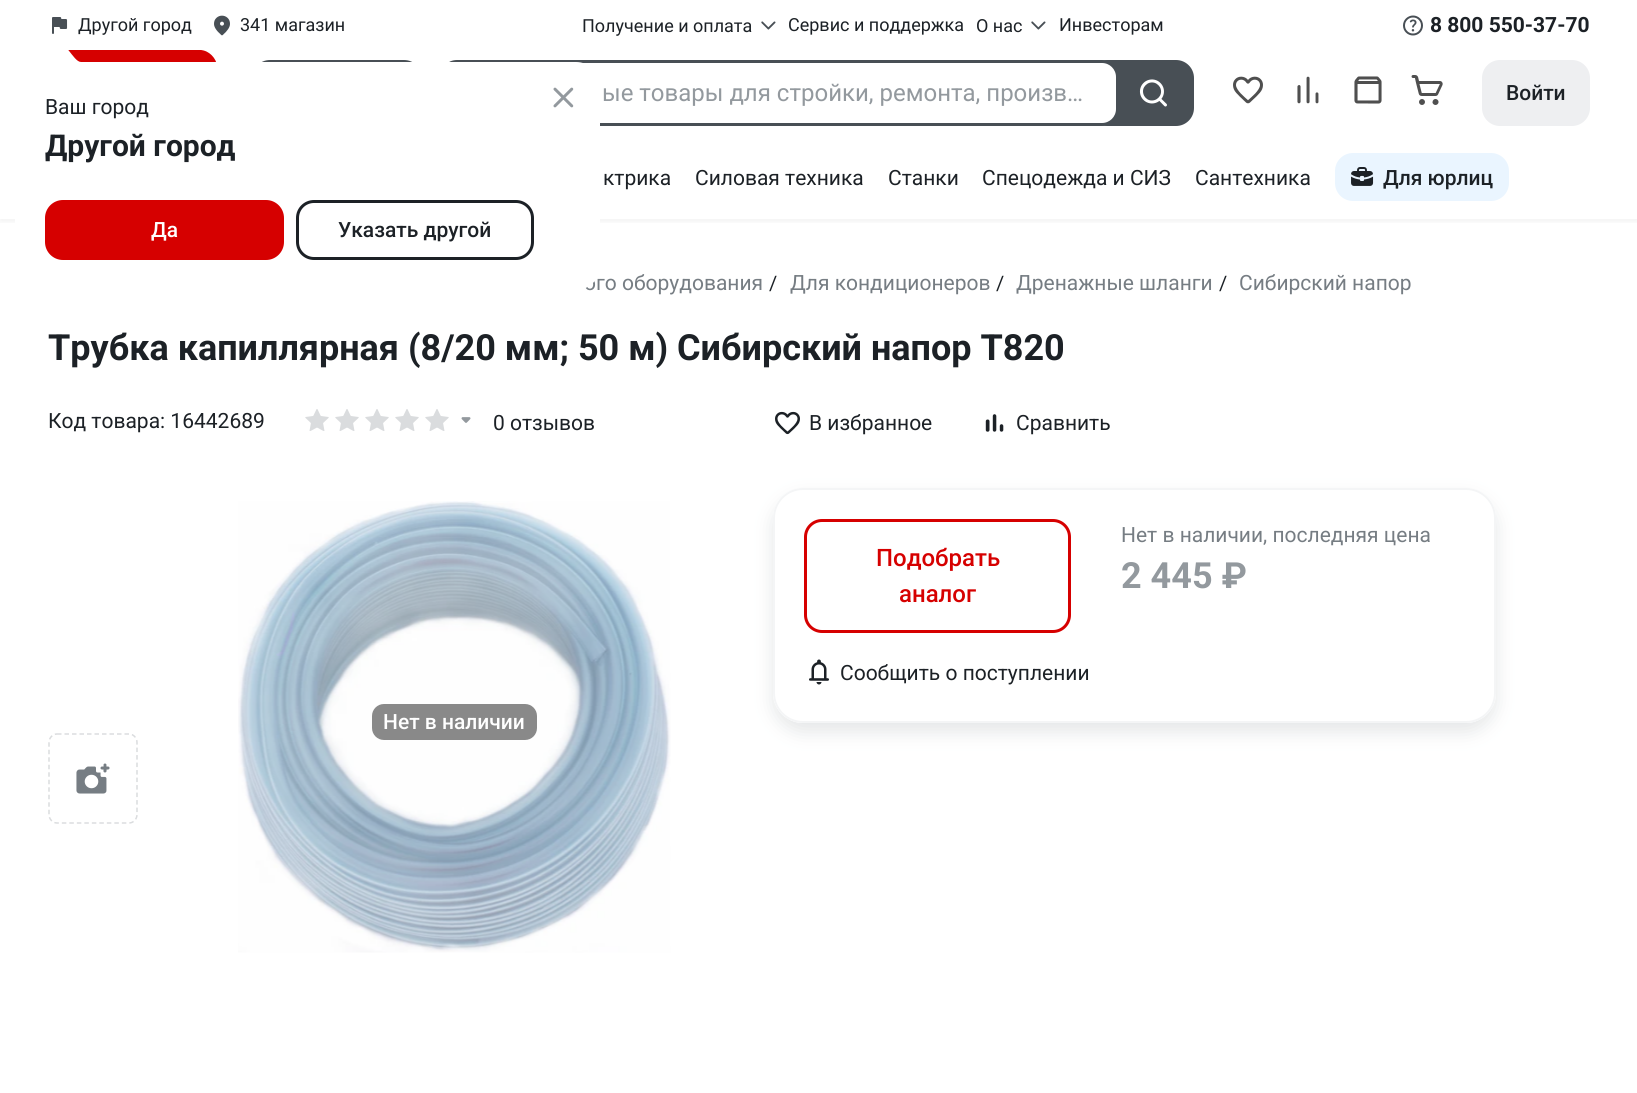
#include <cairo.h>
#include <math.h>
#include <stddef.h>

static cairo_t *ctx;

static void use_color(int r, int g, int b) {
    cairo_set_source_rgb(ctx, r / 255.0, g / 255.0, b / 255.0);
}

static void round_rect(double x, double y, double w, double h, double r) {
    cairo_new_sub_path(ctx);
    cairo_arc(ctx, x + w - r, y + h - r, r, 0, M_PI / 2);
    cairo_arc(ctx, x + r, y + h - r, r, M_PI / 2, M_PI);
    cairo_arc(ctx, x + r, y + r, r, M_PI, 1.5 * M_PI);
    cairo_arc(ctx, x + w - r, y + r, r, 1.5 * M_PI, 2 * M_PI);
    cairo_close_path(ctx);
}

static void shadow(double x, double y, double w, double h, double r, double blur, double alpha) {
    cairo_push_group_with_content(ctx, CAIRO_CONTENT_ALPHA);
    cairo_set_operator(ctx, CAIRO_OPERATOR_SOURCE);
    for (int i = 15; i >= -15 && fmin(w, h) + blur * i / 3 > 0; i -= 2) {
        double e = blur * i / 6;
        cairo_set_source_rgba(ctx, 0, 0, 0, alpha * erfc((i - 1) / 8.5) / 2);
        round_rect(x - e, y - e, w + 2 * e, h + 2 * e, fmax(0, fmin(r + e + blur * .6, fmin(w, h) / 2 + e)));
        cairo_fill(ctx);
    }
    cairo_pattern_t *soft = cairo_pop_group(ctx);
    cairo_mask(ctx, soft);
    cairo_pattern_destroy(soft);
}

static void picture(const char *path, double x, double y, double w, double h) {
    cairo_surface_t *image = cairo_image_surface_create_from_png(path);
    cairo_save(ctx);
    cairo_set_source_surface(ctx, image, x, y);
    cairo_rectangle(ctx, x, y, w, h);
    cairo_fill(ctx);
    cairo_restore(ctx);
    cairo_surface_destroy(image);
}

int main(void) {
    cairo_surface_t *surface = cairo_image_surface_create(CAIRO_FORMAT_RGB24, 1637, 1093);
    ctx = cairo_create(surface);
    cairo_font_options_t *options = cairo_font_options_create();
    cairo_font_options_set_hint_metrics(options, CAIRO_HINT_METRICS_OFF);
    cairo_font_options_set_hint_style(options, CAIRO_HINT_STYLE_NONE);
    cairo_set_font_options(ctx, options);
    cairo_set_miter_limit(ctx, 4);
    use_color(255, 255, 255);
    cairo_paint(ctx);
    picture("img1.png", 52, 17, 16, 17);
    cairo_select_font_face(ctx, "Roboto", CAIRO_FONT_SLANT_NORMAL, CAIRO_FONT_WEIGHT_NORMAL);
    cairo_set_font_size(ctx, 18);
    use_color(28, 33, 38);
    cairo_move_to(ctx, 78, 31);
    cairo_show_text(ctx, "Другой город");
    picture("img2.png", 214, 15, 16, 21);
    cairo_move_to(ctx, 240, 31);
    cairo_show_text(ctx, "341 магазин");
    cairo_move_to(ctx, 582, 32);
    cairo_show_text(ctx, "Получение и оплата");
    picture("img3.png", 761, 21, 15, 9);
    cairo_move_to(ctx, 788, 31);
    cairo_show_text(ctx, "Сервис и поддержка");
    cairo_move_to(ctx, 976, 32);
    cairo_show_text(ctx, "О нас");
    picture("img3.png", 1031, 21, 15, 9);
    cairo_move_to(ctx, 1059, 31);
    cairo_show_text(ctx, "Инвесторам");
    picture("img4.png", 1403, 15, 20, 21);
    cairo_select_font_face(ctx, "Roboto", CAIRO_FONT_SLANT_NORMAL, CAIRO_FONT_WEIGHT_BOLD);
    cairo_set_font_size(ctx, 21);
    cairo_move_to(ctx, 1430, 32);
    cairo_show_text(ctx, "8 800 550-37-70");
    picture("img5.png", 68, 50, 148, 12);
    use_color(72, 79, 85);
    round_rect(252, 60, 170, 66, 18);
    cairo_fill(ctx);
    round_rect(1089, 60, 105, 66, 18);
    cairo_fill(ctx);
    use_color(255, 255, 255);
    round_rect(441.5, 61.5, 676, 63, 15.5);
    cairo_fill_preserve(ctx);
    use_color(72, 79, 85);
    cairo_set_line_width(ctx, 3);
    cairo_stroke(ctx);
    cairo_select_font_face(ctx, "Roboto", CAIRO_FONT_SLANT_NORMAL, CAIRO_FONT_WEIGHT_NORMAL);
    cairo_set_font_size(ctx, 24);
    use_color(147, 153, 158);
    cairo_move_to(ctx, 602, 101);
    cairo_show_text(ctx, "ые товары для стройки, ремонта, произв…");
    picture("img6.png", 1139, 79, 28, 28);
    picture("img7.png", 1233, 76, 30, 28);
    picture("img8.png", 1297, 76, 22, 28);
    picture("img9.png", 1354, 76, 28, 28);
    picture("img10.png", 1411, 75, 32, 30);
    use_color(238, 239, 241);
    round_rect(1482, 60, 108, 66, 18);
    cairo_fill(ctx);
    cairo_select_font_face(ctx, "Roboto Medium", CAIRO_FONT_SLANT_NORMAL, CAIRO_FONT_WEIGHT_NORMAL);
    cairo_set_font_size(ctx, 21);
    use_color(28, 33, 38);
    cairo_move_to(ctx, 1506, 100);
    cairo_show_text(ctx, "Войти");
    cairo_save(ctx);
    cairo_rectangle(ctx, 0, 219, 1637, 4);
    cairo_clip(ctx);
    use_color(0, 0, 0);
    shadow(0, 150, 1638, 72, 0, 3, 0.05);
    cairo_restore(ctx);
    cairo_select_font_face(ctx, "Roboto", CAIRO_FONT_SLANT_NORMAL, CAIRO_FONT_WEIGHT_NORMAL);
    cairo_move_to(ctx, 603, 185);
    cairo_show_text(ctx, "ктрика");
    cairo_move_to(ctx, 695, 185);
    cairo_show_text(ctx, "Силовая техника");
    cairo_move_to(ctx, 888, 185);
    cairo_show_text(ctx, "Станки");
    cairo_move_to(ctx, 982, 185);
    cairo_show_text(ctx, "Спецодежда и СИЗ");
    cairo_move_to(ctx, 1195, 185);
    cairo_show_text(ctx, "Сантехника");
    use_color(234, 245, 255);
    round_rect(1335, 153, 174, 48, 18);
    cairo_fill(ctx);
    picture("img11.png", 1351, 167, 23, 19);
    cairo_select_font_face(ctx, "Roboto Medium", CAIRO_FONT_SLANT_NORMAL, CAIRO_FONT_WEIGHT_NORMAL);
    use_color(28, 33, 38);
    cairo_move_to(ctx, 1383, 185);
    cairo_show_text(ctx, "Для юрлиц");
    cairo_select_font_face(ctx, "Roboto", CAIRO_FONT_SLANT_NORMAL, CAIRO_FONT_WEIGHT_NORMAL);
    use_color(118, 125, 131);
    cairo_move_to(ctx, 584, 290);
    cairo_show_text(ctx, "ого оборудования");
    cairo_set_font_size(ctx, 20);
    use_color(28, 33, 38);
    cairo_move_to(ctx, 769, 290);
    cairo_show_text(ctx, "/");
    cairo_set_font_size(ctx, 21);
    use_color(118, 125, 131);
    cairo_move_to(ctx, 790, 290);
    cairo_show_text(ctx, "Для кондиционеров");
    cairo_set_font_size(ctx, 20);
    use_color(28, 33, 38);
    cairo_move_to(ctx, 996, 290);
    cairo_show_text(ctx, "/");
    cairo_set_font_size(ctx, 21);
    use_color(118, 125, 131);
    cairo_move_to(ctx, 1016, 290);
    cairo_show_text(ctx, "Дренажные шланги");
    cairo_set_font_size(ctx, 20);
    use_color(28, 33, 38);
    cairo_move_to(ctx, 1219, 290);
    cairo_show_text(ctx, "/");
    cairo_set_font_size(ctx, 21);
    use_color(118, 125, 131);
    cairo_move_to(ctx, 1239, 290);
    cairo_show_text(ctx, "Сибирский напор");
    cairo_select_font_face(ctx, "Roboto", CAIRO_FONT_SLANT_NORMAL, CAIRO_FONT_WEIGHT_BOLD);
    cairo_set_font_size(ctx, 36);
    use_color(28, 33, 38);
    cairo_move_to(ctx, 48, 360);
    cairo_show_text(ctx, "Трубка капиллярная (8/20 мм; 50 м) Сибирский напор Т820");
    cairo_select_font_face(ctx, "Roboto", CAIRO_FONT_SLANT_NORMAL, CAIRO_FONT_WEIGHT_NORMAL);
    cairo_set_font_size(ctx, 21);
    cairo_move_to(ctx, 48, 428);
    cairo_show_text(ctx, "Код товара: 16442689");
    picture("img12.png", 305, 409, 24, 22);
    picture("img12.png", 335, 409, 24, 22);
    picture("img12.png", 365, 409, 24, 22);
    picture("img12.png", 395, 409, 24, 22);
    picture("img12.png", 425, 409, 24, 22);
    picture("img13.png", 461, 417, 10, 6);
    cairo_move_to(ctx, 493, 430);
    cairo_show_text(ctx, "0 отзывов");
    picture("img14.png", 775, 411, 25, 24);
    cairo_move_to(ctx, 809, 430);
    cairo_show_text(ctx, "В избранное");
    picture("img15.png", 985, 414, 19, 18);
    cairo_move_to(ctx, 1016, 430);
    cairo_show_text(ctx, "Сравнить");
    cairo_save(ctx);
    cairo_set_fill_rule(ctx, CAIRO_FILL_RULE_EVEN_ODD);
    cairo_new_path(ctx);
    cairo_move_to(ctx, 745, 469);
    cairo_line_to(ctx, 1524, 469);
    cairo_line_to(ctx, 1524, 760);
    cairo_line_to(ctx, 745, 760);
    cairo_close_path(ctx);
    cairo_move_to(ctx, 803, 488);
    cairo_line_to(ctx, 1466, 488);
    cairo_curve_to(ctx, 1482.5, 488, 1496, 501.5, 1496, 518);
    cairo_line_to(ctx, 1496, 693);
    cairo_curve_to(ctx, 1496, 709.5, 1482.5, 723, 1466, 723);
    cairo_line_to(ctx, 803, 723);
    cairo_curve_to(ctx, 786.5, 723, 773, 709.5, 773, 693);
    cairo_line_to(ctx, 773, 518);
    cairo_curve_to(ctx, 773, 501.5, 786.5, 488, 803, 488);
    cairo_close_path(ctx);
    cairo_clip(ctx);
    use_color(229, 231, 232);
    shadow(773, 497, 723, 235, 30, 9, 1);
    cairo_restore(ctx);
    round_rect(774, 489, 721, 233, 29);
    use_color(244, 245, 246);
    cairo_set_line_width(ctx, 2);
    cairo_stroke(ctx);
    round_rect(805.5, 520.5, 264, 111, 16.5);
    use_color(214, 0, 0);
    cairo_set_line_width(ctx, 3);
    cairo_stroke(ctx);
    cairo_select_font_face(ctx, "Roboto Medium", CAIRO_FONT_SLANT_NORMAL, CAIRO_FONT_WEIGHT_NORMAL);
    cairo_set_font_size(ctx, 24);
    cairo_move_to(ctx, 876, 566);
    cairo_show_text(ctx, "Подобрать");
    cairo_move_to(ctx, 899, 602);
    cairo_show_text(ctx, "аналог");
    picture("img16.png", 809, 659, 20, 26);
    cairo_select_font_face(ctx, "Roboto", CAIRO_FONT_SLANT_NORMAL, CAIRO_FONT_WEIGHT_NORMAL);
    cairo_set_font_size(ctx, 21);
    use_color(28, 33, 38);
    cairo_move_to(ctx, 840, 680);
    cairo_show_text(ctx, "Сообщить о поступлении");
    use_color(118, 125, 131);
    cairo_move_to(ctx, 1121, 542);
    cairo_show_text(ctx, "Нет в наличии, последняя цена");
    cairo_select_font_face(ctx, "Roboto", CAIRO_FONT_SLANT_NORMAL, CAIRO_FONT_WEIGHT_BOLD);
    cairo_set_font_size(ctx, 36);
    use_color(147, 153, 158);
    cairo_move_to(ctx, 1121, 588);
    cairo_show_text(ctx, "2 445 ₽");
    picture("img17.png", 238, 501, 433, 452);
    use_color(137, 137, 137);
    round_rect(372, 704, 165, 36, 12);
    cairo_fill(ctx);
    cairo_select_font_face(ctx, "Roboto Medium", CAIRO_FONT_SLANT_NORMAL, CAIRO_FONT_WEIGHT_NORMAL);
    cairo_set_font_size(ctx, 21);
    use_color(255, 255, 255);
    cairo_move_to(ctx, 383, 729);
    cairo_show_text(ctx, "Нет в наличии");
    cairo_new_path(ctx);
    cairo_move_to(ctx, 57, 734);
    cairo_line_to(ctx, 129, 734);
    cairo_curve_to(ctx, 133.5, 734, 137, 738, 137, 742.5);
    cairo_line_to(ctx, 137, 814.5);
    cairo_curve_to(ctx, 137, 819, 133.5, 823, 129, 823);
    cairo_line_to(ctx, 57, 823);
    cairo_curve_to(ctx, 52.5, 823, 49, 819, 49, 814.5);
    cairo_line_to(ctx, 49, 742.5);
    cairo_curve_to(ctx, 49, 738, 52.5, 734, 57, 734);
    cairo_close_path(ctx);
    use_color(218, 220, 222);
    cairo_set_line_width(ctx, 1.5);
    cairo_set_dash(ctx, (double[]){4.5, 3}, 2, 0);
    cairo_stroke(ctx);
    picture("img18.png", 76, 763, 34, 31);
    use_color(255, 255, 255);
    round_rect(15, 62, 585, 228, 24);
    cairo_fill(ctx);
    cairo_new_path(ctx);
    cairo_move_to(ctx, 56, 46);
    cairo_line_to(ctx, 43, 59);
    cairo_curve_to(ctx, 42, 61, 41, 62, 39, 62);
    cairo_line_to(ctx, 81, 62);
    cairo_curve_to(ctx, 73, 62, 64, 36, 56, 46);
    cairo_close_path(ctx);
    cairo_fill(ctx);
    cairo_select_font_face(ctx, "Roboto", CAIRO_FONT_SLANT_NORMAL, CAIRO_FONT_WEIGHT_NORMAL);
    use_color(28, 33, 38);
    cairo_move_to(ctx, 45, 114);
    cairo_show_text(ctx, "Ваш город");
    cairo_select_font_face(ctx, "Roboto", CAIRO_FONT_SLANT_NORMAL, CAIRO_FONT_WEIGHT_BOLD);
    cairo_set_font_size(ctx, 30);
    cairo_move_to(ctx, 45, 156);
    cairo_show_text(ctx, "Другой город");
    use_color(214, 0, 0);
    round_rect(45, 200, 239, 60, 18);
    cairo_fill(ctx);
    cairo_select_font_face(ctx, "Roboto Medium", CAIRO_FONT_SLANT_NORMAL, CAIRO_FONT_WEIGHT_NORMAL);
    cairo_set_font_size(ctx, 21);
    use_color(255, 255, 255);
    cairo_move_to(ctx, 151, 237);
    cairo_show_text(ctx, "Да");
    round_rect(297.5, 201.5, 235, 57, 16.5);
    use_color(28, 33, 38);
    cairo_set_line_width(ctx, 3);
    cairo_set_dash(ctx, NULL, 0, 0);
    cairo_stroke(ctx);
    cairo_move_to(ctx, 338, 237);
    cairo_show_text(ctx, "Указать другой");
    picture("img19.png", 553, 87, 21, 21);
    cairo_surface_write_to_png(surface, "result.png");
    cairo_font_options_destroy(options);
    cairo_destroy(ctx);
    cairo_surface_destroy(surface);
    return 0;
}
